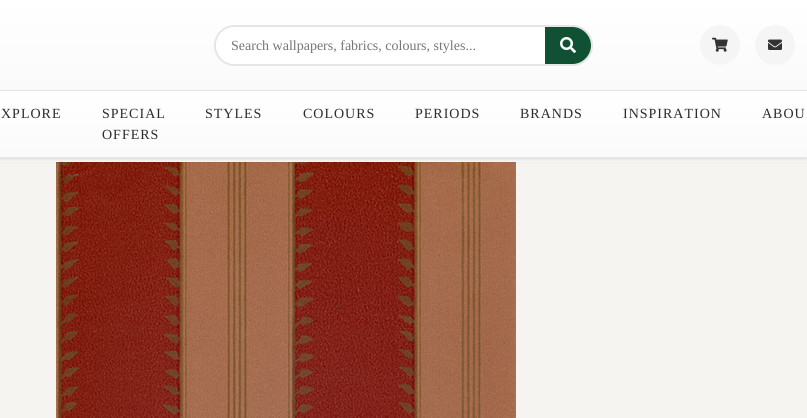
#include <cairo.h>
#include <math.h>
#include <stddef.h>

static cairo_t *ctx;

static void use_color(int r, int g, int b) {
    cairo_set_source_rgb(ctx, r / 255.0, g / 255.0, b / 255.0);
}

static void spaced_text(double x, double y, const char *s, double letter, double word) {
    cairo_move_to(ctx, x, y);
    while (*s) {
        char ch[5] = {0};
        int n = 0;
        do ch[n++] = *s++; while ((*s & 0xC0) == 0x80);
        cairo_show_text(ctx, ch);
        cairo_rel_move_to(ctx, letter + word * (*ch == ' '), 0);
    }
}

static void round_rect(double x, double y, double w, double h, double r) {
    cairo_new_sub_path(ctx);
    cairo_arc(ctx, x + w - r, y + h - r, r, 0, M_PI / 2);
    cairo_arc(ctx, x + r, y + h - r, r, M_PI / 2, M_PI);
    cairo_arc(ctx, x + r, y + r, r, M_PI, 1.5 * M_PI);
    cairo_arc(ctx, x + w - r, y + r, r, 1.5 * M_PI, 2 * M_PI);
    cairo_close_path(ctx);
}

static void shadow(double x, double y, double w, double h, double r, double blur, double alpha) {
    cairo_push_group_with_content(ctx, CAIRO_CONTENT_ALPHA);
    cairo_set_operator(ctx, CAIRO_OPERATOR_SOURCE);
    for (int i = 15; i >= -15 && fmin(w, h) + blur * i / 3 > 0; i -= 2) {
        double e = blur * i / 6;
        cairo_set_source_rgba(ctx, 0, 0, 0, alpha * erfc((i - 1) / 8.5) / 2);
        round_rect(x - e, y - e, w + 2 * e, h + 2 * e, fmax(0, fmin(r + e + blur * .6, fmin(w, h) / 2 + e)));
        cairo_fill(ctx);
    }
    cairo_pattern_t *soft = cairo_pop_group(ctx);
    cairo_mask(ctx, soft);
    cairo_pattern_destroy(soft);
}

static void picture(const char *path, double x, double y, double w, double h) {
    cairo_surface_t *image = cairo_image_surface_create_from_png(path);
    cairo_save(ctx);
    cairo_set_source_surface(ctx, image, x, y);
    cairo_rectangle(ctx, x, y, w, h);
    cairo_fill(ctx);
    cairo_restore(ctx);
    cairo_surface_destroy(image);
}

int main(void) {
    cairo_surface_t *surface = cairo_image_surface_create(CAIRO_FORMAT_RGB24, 807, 418);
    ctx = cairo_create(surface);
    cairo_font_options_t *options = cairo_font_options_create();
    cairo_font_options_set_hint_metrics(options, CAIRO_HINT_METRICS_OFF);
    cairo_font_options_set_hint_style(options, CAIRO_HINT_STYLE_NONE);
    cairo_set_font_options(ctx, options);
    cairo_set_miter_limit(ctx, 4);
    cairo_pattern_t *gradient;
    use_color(255, 255, 255);
    cairo_paint(ctx);
    use_color(245, 244, 240);
    cairo_rectangle(ctx, 0, 162, 807, 256);
    cairo_fill(ctx);
    picture("img4.png", 56, 162, 460, 256);
    use_color(0, 0, 0);
    shadow(0, 2, 807, 158, 0, 2.5, 0.1);
    gradient = cairo_pattern_create_linear(404, 0, 404, 90);
    cairo_pattern_add_color_stop_rgba(gradient, 0, 1, 1, 1, 1);
    cairo_pattern_add_color_stop_rgba(gradient, 1, 0.98, 0.98, 0.98, 1);
    cairo_set_source(ctx, gradient);
    cairo_pattern_destroy(gradient);
    cairo_rectangle(ctx, 0, 0, 807, 90);
    cairo_fill(ctx);
    use_color(229, 229, 229);
    cairo_rectangle(ctx, 0, 90, 807, 1);
    cairo_fill(ctx);
    round_rect(215, 26, 377, 39, 19.5);
    cairo_stroke(ctx);
    use_color(255, 255, 255);
    cairo_new_path(ctx);
    cairo_move_to(ctx, 234.5, 27);
    cairo_line_to(ctx, 545, 27);
    cairo_line_to(ctx, 545, 64);
    cairo_line_to(ctx, 234.5, 64);
    cairo_curve_to(ctx, 224.5, 64, 216, 55.5, 216, 45.5);
    cairo_curve_to(ctx, 216, 35.5, 224.5, 27, 234.5, 27);
    cairo_close_path(ctx);
    cairo_fill(ctx);
    cairo_select_font_face(ctx, "Liberation Serif", CAIRO_FONT_SLANT_NORMAL, CAIRO_FONT_WEIGHT_NORMAL);
    cairo_set_font_size(ctx, 14);
    use_color(117, 117, 117);
    cairo_move_to(ctx, 231, 50);
    cairo_show_text(ctx, "Search wallpapers, fabrics, colours, styles...");
    use_color(15, 81, 50);
    cairo_new_path(ctx);
    cairo_move_to(ctx, 545, 27);
    cairo_line_to(ctx, 572.5, 27);
    cairo_curve_to(ctx, 582.5, 27, 591, 35.5, 591, 45.5);
    cairo_curve_to(ctx, 591, 55.5, 582.5, 64, 572.5, 64);
    cairo_line_to(ctx, 545, 64);
    cairo_close_path(ctx);
    cairo_fill(ctx);
    picture("img1.png", 560, 37, 16, 16);
    use_color(245, 245, 245);
    cairo_arc(ctx, 720, 45, 20, 0, 2 * M_PI);
    cairo_fill(ctx);
    picture("img2.png", 712, 37, 16, 15);
    cairo_arc(ctx, 775, 45, 20, 0, 2 * M_PI);
    cairo_fill(ctx);
    picture("img3.png", 768, 39, 14, 11);
    use_color(0, 0, 0);
    shadow(0, 93, 807, 67, 0, 2, 0.05);
    gradient = cairo_pattern_create_linear(404, 91, 404, 157);
    cairo_pattern_add_color_stop_rgba(gradient, 0, 1, 1, 1, 1);
    cairo_pattern_add_color_stop_rgba(gradient, 1, 0.98, 0.98, 0.98, 1);
    cairo_set_source(ctx, gradient);
    cairo_pattern_destroy(gradient);
    cairo_rectangle(ctx, 0, 91, 807, 66);
    cairo_fill(ctx);
    use_color(229, 229, 229);
    cairo_rectangle(ctx, 0, 157, 807, 1);
    cairo_fill(ctx);
    use_color(44, 44, 44);
    spaced_text(1, 118, "XPLORE", 1, 0);
    spaced_text(102, 118, "SPECIAL", 1, 0);
    spaced_text(102, 139, "OFFERS", 1, 0);
    spaced_text(205, 118, "STYLES", 1, 0);
    spaced_text(303, 118, "COLOURS", 1, 0);
    spaced_text(415, 118, "PERIODS", 1, 0);
    spaced_text(520, 118, "BRANDS", 1, 0);
    spaced_text(623, 118, "INSPIRATION", 1, 0);
    spaced_text(762, 118, "ABOU", 1, 0);
    cairo_surface_write_to_png(surface, "result.png");
    cairo_font_options_destroy(options);
    cairo_destroy(ctx);
    cairo_surface_destroy(surface);
    return 0;
}
